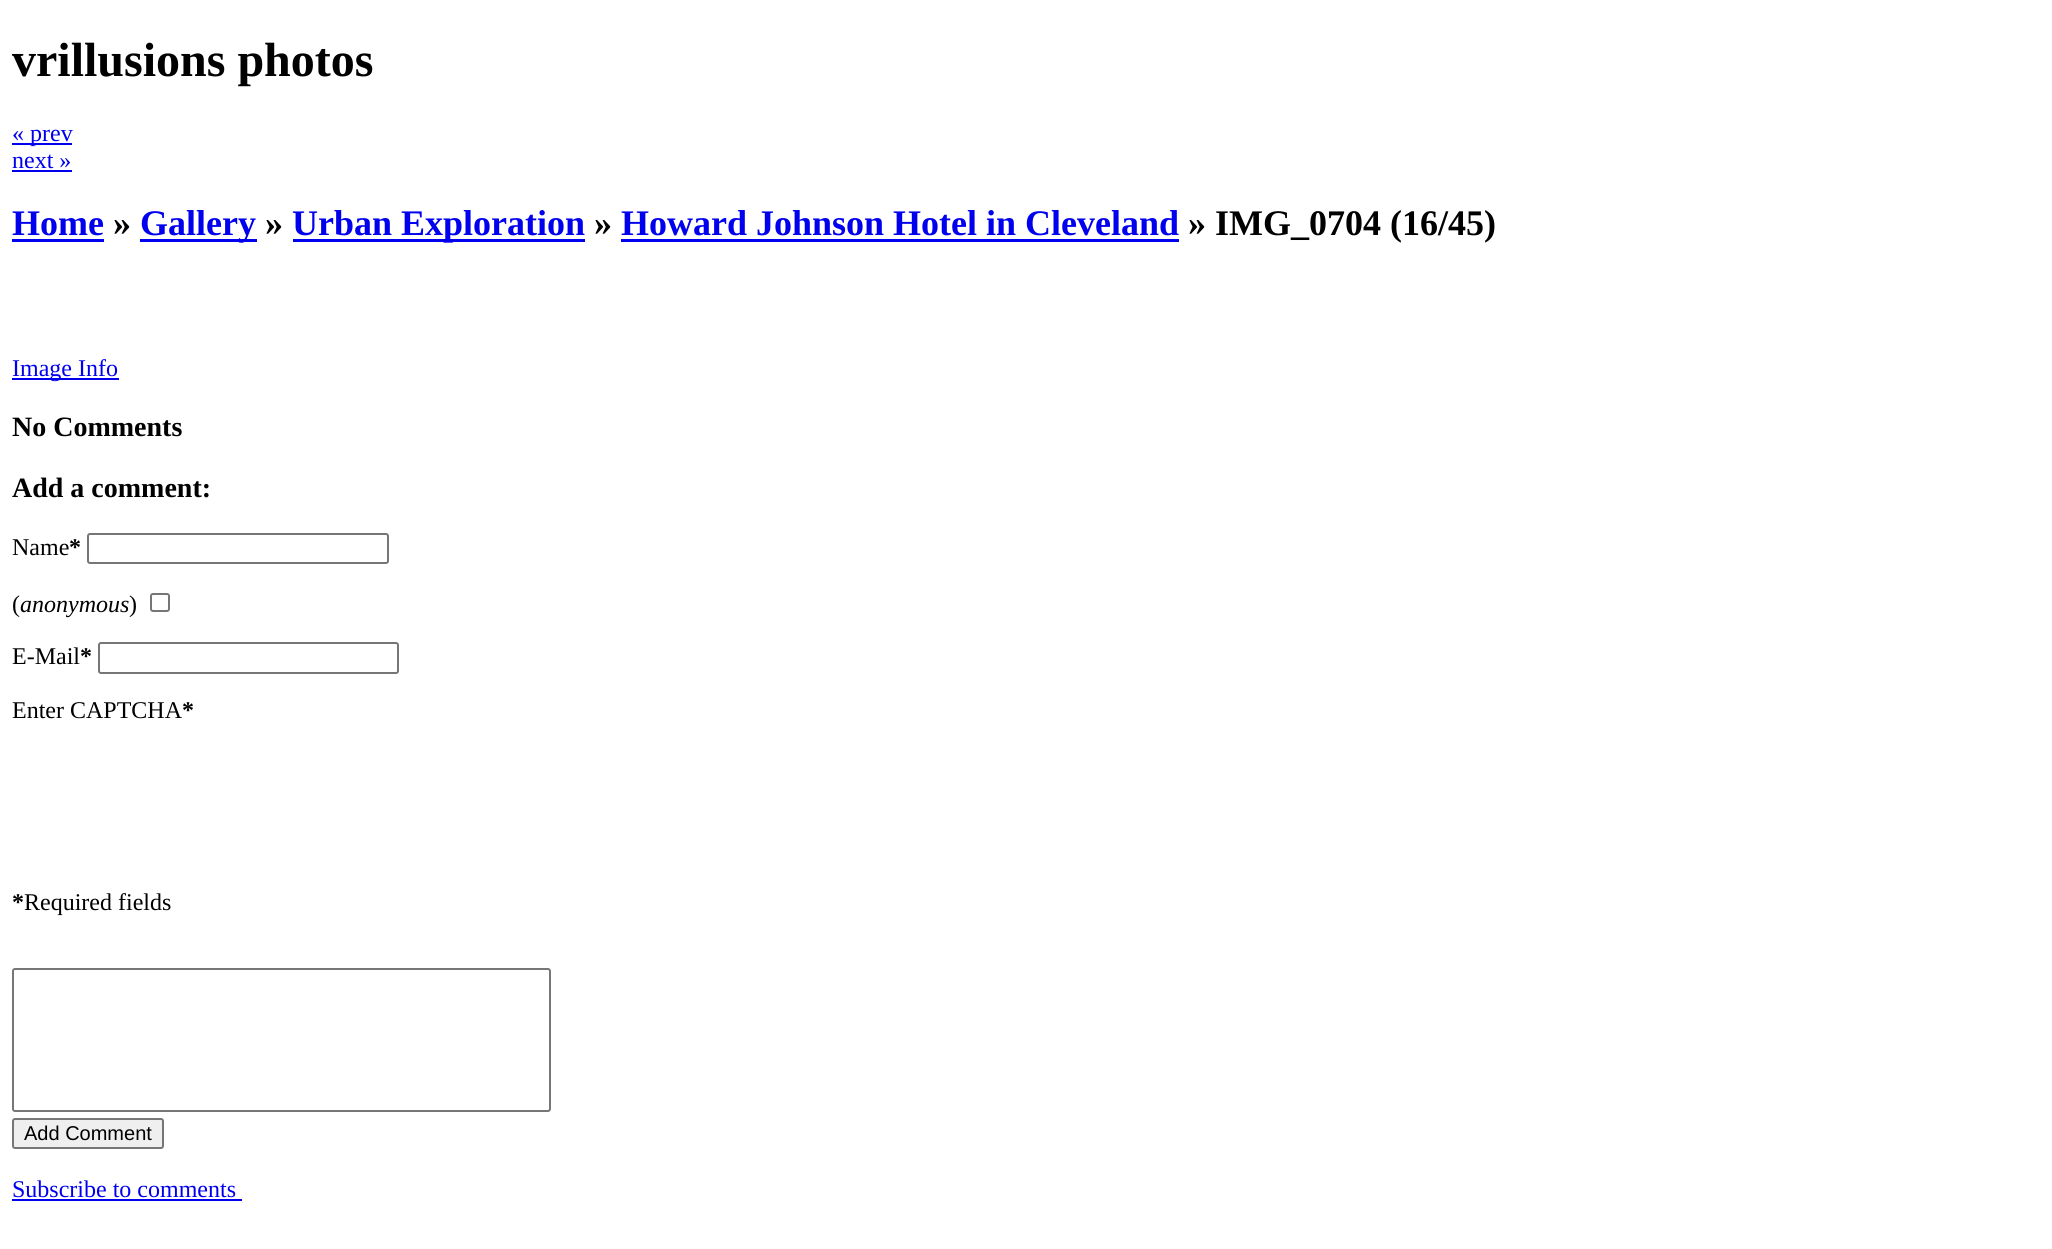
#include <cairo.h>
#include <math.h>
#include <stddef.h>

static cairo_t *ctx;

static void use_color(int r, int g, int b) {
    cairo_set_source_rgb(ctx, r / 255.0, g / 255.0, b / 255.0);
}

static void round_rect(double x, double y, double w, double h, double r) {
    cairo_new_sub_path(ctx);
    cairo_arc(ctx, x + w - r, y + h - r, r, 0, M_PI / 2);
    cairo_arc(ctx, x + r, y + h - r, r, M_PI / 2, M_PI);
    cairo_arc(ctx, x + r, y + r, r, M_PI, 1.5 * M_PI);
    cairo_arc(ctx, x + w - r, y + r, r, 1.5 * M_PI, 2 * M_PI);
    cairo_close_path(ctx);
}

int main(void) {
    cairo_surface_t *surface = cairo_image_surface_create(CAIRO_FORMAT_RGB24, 2052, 1249);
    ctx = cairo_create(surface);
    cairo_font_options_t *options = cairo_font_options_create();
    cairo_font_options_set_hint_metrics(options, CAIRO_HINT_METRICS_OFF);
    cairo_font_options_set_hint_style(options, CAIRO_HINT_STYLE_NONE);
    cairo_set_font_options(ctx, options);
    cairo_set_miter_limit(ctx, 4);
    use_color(255, 255, 255);
    cairo_paint(ctx);
    cairo_select_font_face(ctx, "Liberation Serif", CAIRO_FONT_SLANT_NORMAL, CAIRO_FONT_WEIGHT_BOLD);
    cairo_set_font_size(ctx, 48);
    use_color(0, 0, 0);
    cairo_move_to(ctx, 12, 76);
    cairo_show_text(ctx, "vrillusions photos");
    use_color(0, 0, 238);
    cairo_rectangle(ctx, 12, 143, 60, 2);
    cairo_fill(ctx);
    cairo_select_font_face(ctx, "Liberation Serif", CAIRO_FONT_SLANT_NORMAL, CAIRO_FONT_WEIGHT_NORMAL);
    cairo_set_font_size(ctx, 24);
    cairo_move_to(ctx, 12, 141);
    cairo_show_text(ctx, "« prev");
    cairo_move_to(ctx, 12, 168);
    cairo_show_text(ctx, "next »");
    cairo_rectangle(ctx, 12, 170, 60, 2);
    cairo_fill(ctx);
    cairo_select_font_face(ctx, "Liberation Serif", CAIRO_FONT_SLANT_NORMAL, CAIRO_FONT_WEIGHT_BOLD);
    cairo_set_font_size(ctx, 36);
    cairo_move_to(ctx, 12, 235);
    cairo_show_text(ctx, "Home");
    cairo_rectangle(ctx, 12, 239, 92, 3);
    cairo_fill(ctx);
    use_color(0, 0, 0);
    cairo_move_to(ctx, 113, 235);
    cairo_show_text(ctx, "»");
    use_color(0, 0, 238);
    cairo_rectangle(ctx, 140, 239, 117, 3);
    cairo_fill(ctx);
    cairo_move_to(ctx, 140, 235);
    cairo_show_text(ctx, "Gallery");
    use_color(0, 0, 0);
    cairo_move_to(ctx, 265, 235);
    cairo_show_text(ctx, "»");
    use_color(0, 0, 238);
    cairo_rectangle(ctx, 293, 239, 292, 3);
    cairo_fill(ctx);
    cairo_move_to(ctx, 292, 235);
    cairo_show_text(ctx, "Urban Exploration");
    use_color(0, 0, 0);
    cairo_move_to(ctx, 594, 235);
    cairo_show_text(ctx, "»");
    use_color(0, 0, 238);
    cairo_move_to(ctx, 621, 235);
    cairo_show_text(ctx, "Howard Johnson Hotel in Cleveland");
    cairo_rectangle(ctx, 621, 239, 558, 3);
    cairo_fill(ctx);
    use_color(0, 0, 0);
    cairo_move_to(ctx, 1188, 235);
    cairo_show_text(ctx, "» IMG_0704 (16/45)");
    use_color(0, 0, 238);
    cairo_rectangle(ctx, 12, 378, 107, 2);
    cairo_fill(ctx);
    cairo_select_font_face(ctx, "Liberation Serif", CAIRO_FONT_SLANT_NORMAL, CAIRO_FONT_WEIGHT_NORMAL);
    cairo_set_font_size(ctx, 24);
    cairo_move_to(ctx, 12, 376);
    cairo_show_text(ctx, "Image Info");
    cairo_select_font_face(ctx, "Liberation Serif", CAIRO_FONT_SLANT_NORMAL, CAIRO_FONT_WEIGHT_BOLD);
    cairo_set_font_size(ctx, 28);
    use_color(0, 0, 0);
    cairo_move_to(ctx, 12, 436);
    cairo_show_text(ctx, "No Comments");
    cairo_move_to(ctx, 12, 497);
    cairo_show_text(ctx, "Add a comment:");
    cairo_select_font_face(ctx, "Liberation Serif", CAIRO_FONT_SLANT_NORMAL, CAIRO_FONT_WEIGHT_NORMAL);
    cairo_set_font_size(ctx, 24);
    cairo_move_to(ctx, 12, 555);
    cairo_show_text(ctx, "Name");
    cairo_select_font_face(ctx, "Liberation Serif", CAIRO_FONT_SLANT_NORMAL, CAIRO_FONT_WEIGHT_BOLD);
    cairo_move_to(ctx, 69, 555);
    cairo_show_text(ctx, "*");
    round_rect(88, 534, 300, 29, 2);
    use_color(118, 118, 118);
    cairo_stroke(ctx);
    cairo_select_font_face(ctx, "Liberation Serif", CAIRO_FONT_SLANT_NORMAL, CAIRO_FONT_WEIGHT_NORMAL);
    use_color(0, 0, 0);
    cairo_move_to(ctx, 12, 612);
    cairo_show_text(ctx, "(");
    cairo_select_font_face(ctx, "Liberation Serif", CAIRO_FONT_SLANT_ITALIC, CAIRO_FONT_WEIGHT_NORMAL);
    cairo_move_to(ctx, 20, 612);
    cairo_show_text(ctx, "anonymous");
    cairo_select_font_face(ctx, "Liberation Serif", CAIRO_FONT_SLANT_NORMAL, CAIRO_FONT_WEIGHT_NORMAL);
    cairo_move_to(ctx, 129, 612);
    cairo_show_text(ctx, ")");
    round_rect(151, 594, 18, 17, 2);
    use_color(118, 118, 118);
    cairo_stroke(ctx);
    use_color(0, 0, 0);
    cairo_move_to(ctx, 12, 664);
    cairo_show_text(ctx, "E-Mail");
    cairo_select_font_face(ctx, "Liberation Serif", CAIRO_FONT_SLANT_NORMAL, CAIRO_FONT_WEIGHT_BOLD);
    cairo_move_to(ctx, 80, 664);
    cairo_show_text(ctx, "*");
    round_rect(99, 643, 299, 30, 2);
    use_color(118, 118, 118);
    cairo_stroke(ctx);
    cairo_select_font_face(ctx, "Liberation Serif", CAIRO_FONT_SLANT_NORMAL, CAIRO_FONT_WEIGHT_NORMAL);
    use_color(0, 0, 0);
    cairo_move_to(ctx, 12, 718);
    cairo_show_text(ctx, "Enter CAPTCHA");
    cairo_select_font_face(ctx, "Liberation Serif", CAIRO_FONT_SLANT_NORMAL, CAIRO_FONT_WEIGHT_BOLD);
    cairo_move_to(ctx, 182, 718);
    cairo_show_text(ctx, "*");
    cairo_move_to(ctx, 12, 910);
    cairo_show_text(ctx, "*");
    cairo_select_font_face(ctx, "Liberation Serif", CAIRO_FONT_SLANT_NORMAL, CAIRO_FONT_WEIGHT_NORMAL);
    cairo_move_to(ctx, 24, 910);
    cairo_show_text(ctx, "Required fields");
    round_rect(13, 969, 537, 142, 2);
    use_color(118, 118, 118);
    cairo_stroke(ctx);
    use_color(239, 239, 239);
    round_rect(13, 1119, 150, 29, 2);
    cairo_fill_preserve(ctx);
    use_color(118, 118, 118);
    cairo_stroke(ctx);
    cairo_select_font_face(ctx, "Liberation Sans", CAIRO_FONT_SLANT_NORMAL, CAIRO_FONT_WEIGHT_NORMAL);
    cairo_set_font_size(ctx, 20);
    use_color(0, 0, 0);
    cairo_move_to(ctx, 24, 1140);
    cairo_show_text(ctx, "Add Comment");
    cairo_select_font_face(ctx, "Liberation Serif", CAIRO_FONT_SLANT_NORMAL, CAIRO_FONT_WEIGHT_NORMAL);
    cairo_set_font_size(ctx, 24);
    use_color(0, 0, 238);
    cairo_move_to(ctx, 12, 1197);
    cairo_show_text(ctx, "Subscribe to comments");
    cairo_rectangle(ctx, 12, 1199, 230, 2);
    cairo_fill(ctx);
    cairo_surface_write_to_png(surface, "result.png");
    cairo_font_options_destroy(options);
    cairo_destroy(ctx);
    cairo_surface_destroy(surface);
    return 0;
}
